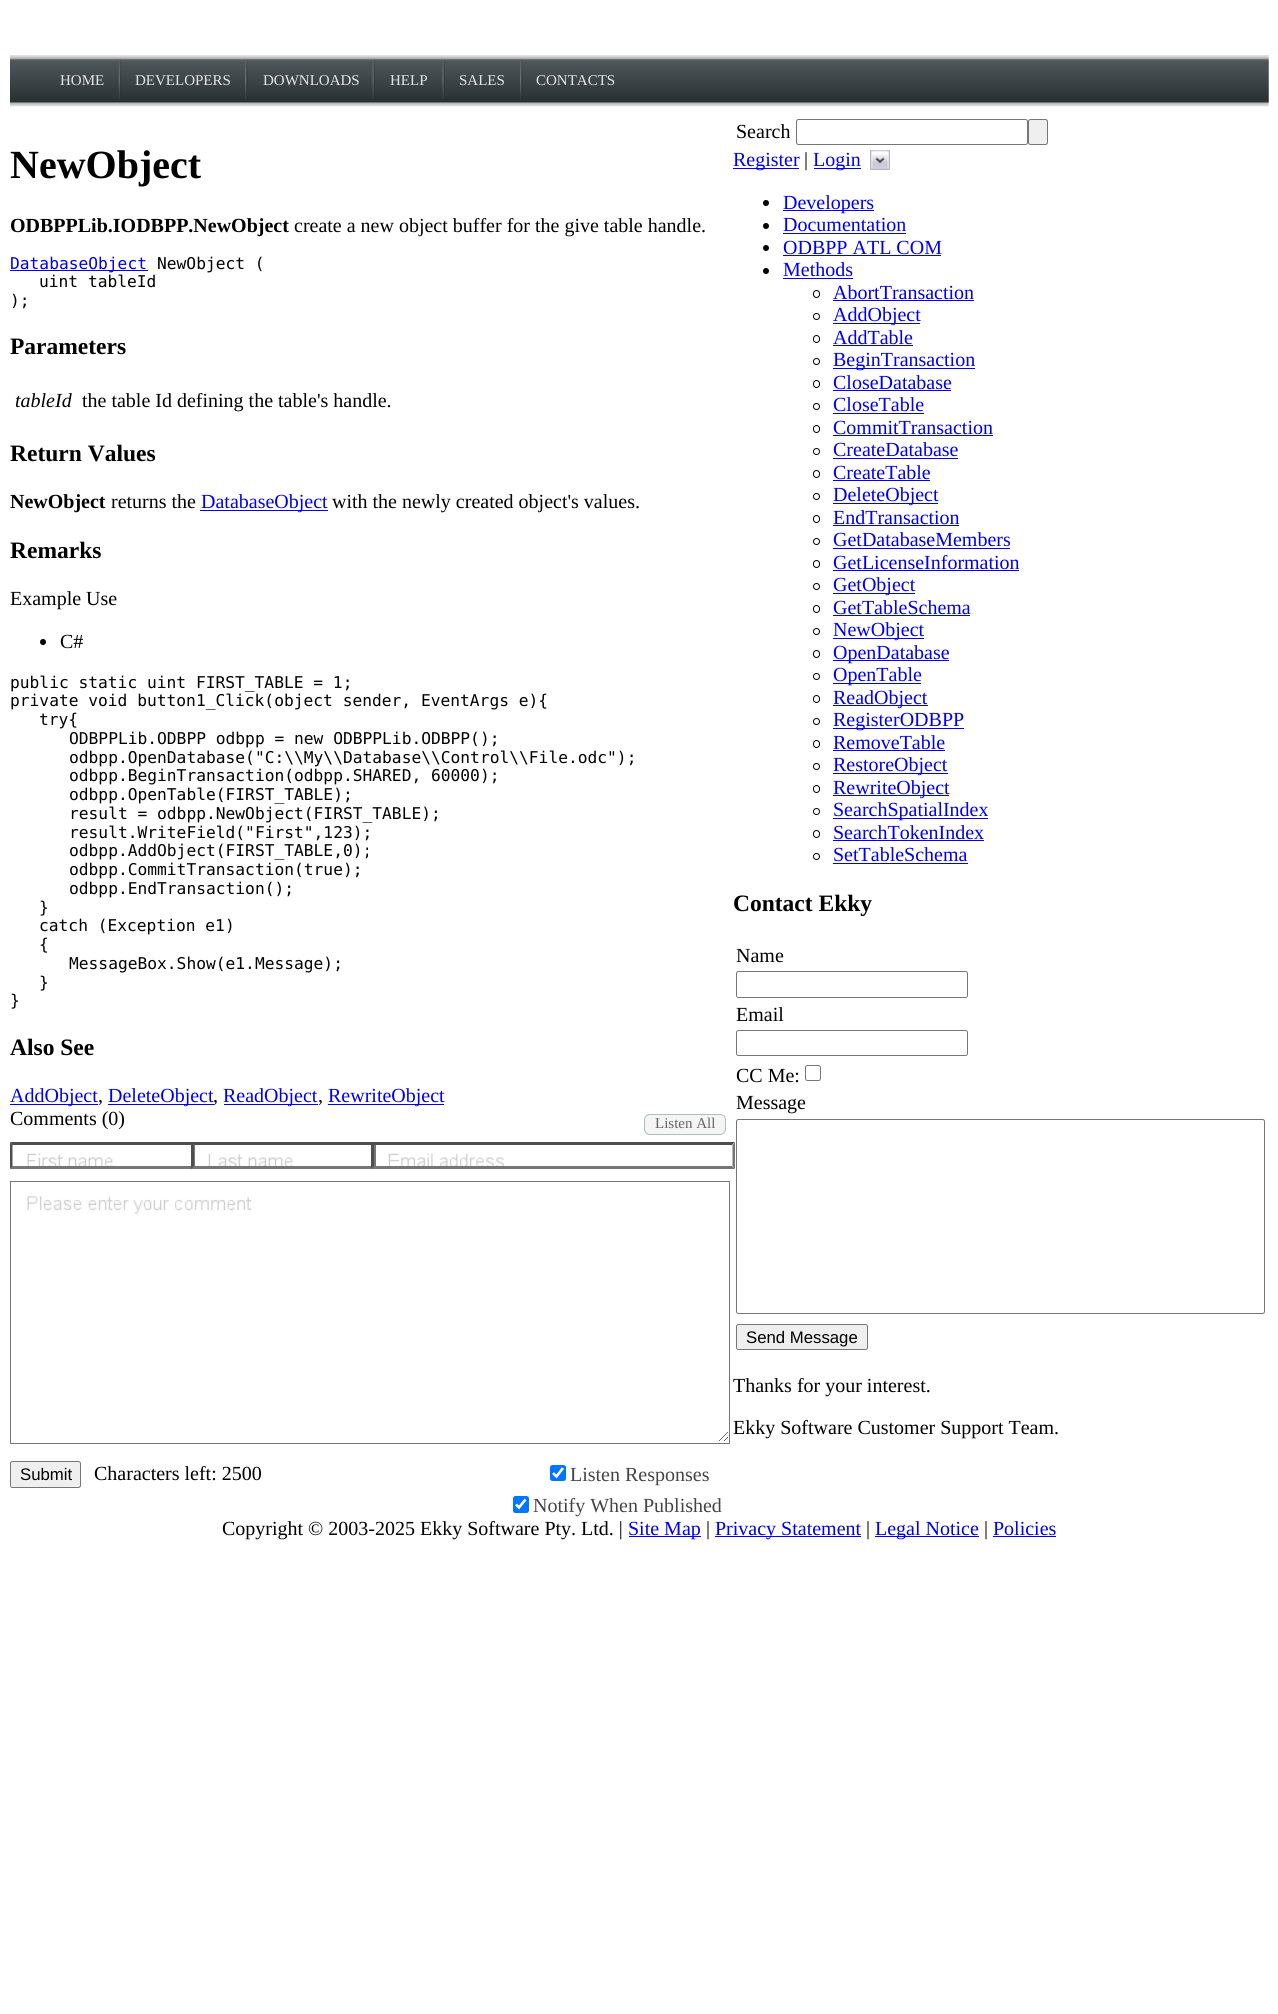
#include <cairo.h>
#include <math.h>
#include <stddef.h>

static cairo_t *ctx;

static void use_color(int r, int g, int b) {
    cairo_set_source_rgb(ctx, r / 255.0, g / 255.0, b / 255.0);
}

static void round_rect(double x, double y, double w, double h, double r) {
    cairo_new_sub_path(ctx);
    cairo_arc(ctx, x + w - r, y + h - r, r, 0, M_PI / 2);
    cairo_arc(ctx, x + r, y + h - r, r, M_PI / 2, M_PI);
    cairo_arc(ctx, x + r, y + r, r, M_PI, 1.5 * M_PI);
    cairo_arc(ctx, x + w - r, y + r, r, 1.5 * M_PI, 2 * M_PI);
    cairo_close_path(ctx);
}

static void picture(const char *path, double x, double y, double w, double h) {
    cairo_surface_t *image = cairo_image_surface_create_from_png(path);
    cairo_save(ctx);
    cairo_set_source_surface(ctx, image, x, y);
    cairo_rectangle(ctx, x, y, w, h);
    cairo_fill(ctx);
    cairo_restore(ctx);
    cairo_surface_destroy(image);
}

int main(void) {
    cairo_surface_t *surface = cairo_image_surface_create(CAIRO_FORMAT_RGB24, 1278, 2014);
    ctx = cairo_create(surface);
    cairo_font_options_t *options = cairo_font_options_create();
    cairo_font_options_set_hint_metrics(options, CAIRO_HINT_METRICS_OFF);
    cairo_font_options_set_hint_style(options, CAIRO_HINT_STYLE_NONE);
    cairo_set_font_options(ctx, options);
    cairo_set_miter_limit(ctx, 4);
    use_color(255, 255, 255);
    cairo_paint(ctx);
    picture("img1.png", 10, 55, 1259, 52);
    picture("img2.png", 118, 60, 4, 40);
    cairo_select_font_face(ctx, "Liberation Serif", CAIRO_FONT_SLANT_NORMAL, CAIRO_FONT_WEIGHT_NORMAL);
    cairo_set_font_size(ctx, 15);
    use_color(229, 229, 229);
    cairo_move_to(ctx, 60, 85);
    cairo_show_text(ctx, "HOME");
    picture("img3.png", 245, 60, 3, 40);
    cairo_move_to(ctx, 135, 85);
    cairo_show_text(ctx, "DEVELOPERS");
    picture("img4.png", 372, 60, 3, 39);
    cairo_move_to(ctx, 263, 85);
    cairo_show_text(ctx, "DOWNLOADS");
    picture("img4.png", 442, 60, 3, 39);
    cairo_move_to(ctx, 390, 85);
    cairo_show_text(ctx, "HELP");
    picture("img3.png", 520, 60, 3, 40);
    cairo_move_to(ctx, 459, 85);
    cairo_show_text(ctx, "SALES");
    cairo_move_to(ctx, 536, 85);
    cairo_show_text(ctx, "CONTACTS");
    cairo_select_font_face(ctx, "Liberation Serif", CAIRO_FONT_SLANT_NORMAL, CAIRO_FONT_WEIGHT_BOLD);
    cairo_set_font_size(ctx, 40);
    use_color(0, 0, 0);
    cairo_move_to(ctx, 10, 178);
    cairo_show_text(ctx, "NewObject");
    cairo_set_font_size(ctx, 20);
    cairo_move_to(ctx, 10, 232);
    cairo_show_text(ctx, "ODBPPLib.IODBPP.NewObject");
    cairo_select_font_face(ctx, "Liberation Serif", CAIRO_FONT_SLANT_NORMAL, CAIRO_FONT_WEIGHT_NORMAL);
    cairo_move_to(ctx, 294, 232);
    cairo_show_text(ctx, "create a new object buffer for the give table handle.");
    use_color(0, 0, 238);
    cairo_rectangle(ctx, 10, 270, 138, 1);
    cairo_fill(ctx);
    cairo_select_font_face(ctx, "DejaVu Sans Mono", CAIRO_FONT_SLANT_NORMAL, CAIRO_FONT_WEIGHT_NORMAL);
    cairo_set_font_size(ctx, 16.25);
    cairo_move_to(ctx, 10, 269);
    cairo_show_text(ctx, "DatabaseObject");
    use_color(0, 0, 0);
    cairo_move_to(ctx, 157, 269);
    cairo_show_text(ctx, "NewObject (");
    cairo_move_to(ctx, 39, 287);
    cairo_show_text(ctx, "uint tableId");
    cairo_move_to(ctx, 10, 306);
    cairo_show_text(ctx, ");");
    cairo_select_font_face(ctx, "Liberation Serif", CAIRO_FONT_SLANT_NORMAL, CAIRO_FONT_WEIGHT_BOLD);
    cairo_set_font_size(ctx, 23.5);
    cairo_move_to(ctx, 10, 354);
    cairo_show_text(ctx, "Parameters");
    cairo_select_font_face(ctx, "Liberation Serif", CAIRO_FONT_SLANT_ITALIC, CAIRO_FONT_WEIGHT_NORMAL);
    cairo_set_font_size(ctx, 20);
    cairo_move_to(ctx, 15, 407);
    cairo_show_text(ctx, "tableId");
    cairo_select_font_face(ctx, "Liberation Serif", CAIRO_FONT_SLANT_NORMAL, CAIRO_FONT_WEIGHT_NORMAL);
    cairo_move_to(ctx, 82, 407);
    cairo_show_text(ctx, "the table Id defining the table's handle.");
    cairo_select_font_face(ctx, "Liberation Serif", CAIRO_FONT_SLANT_NORMAL, CAIRO_FONT_WEIGHT_BOLD);
    cairo_set_font_size(ctx, 23.5);
    cairo_move_to(ctx, 10, 461);
    cairo_show_text(ctx, "Return Values");
    cairo_set_font_size(ctx, 20);
    cairo_move_to(ctx, 10, 508);
    cairo_show_text(ctx, "NewObject");
    cairo_select_font_face(ctx, "Liberation Serif", CAIRO_FONT_SLANT_NORMAL, CAIRO_FONT_WEIGHT_NORMAL);
    cairo_move_to(ctx, 111, 508);
    cairo_show_text(ctx, "returns the");
    use_color(0, 0, 238);
    cairo_rectangle(ctx, 200, 510, 128, 1);
    cairo_fill(ctx);
    cairo_move_to(ctx, 201, 508);
    cairo_show_text(ctx, "DatabaseObject");
    use_color(0, 0, 0);
    cairo_move_to(ctx, 332, 508);
    cairo_show_text(ctx, "with the newly created object's values.");
    cairo_select_font_face(ctx, "Liberation Serif", CAIRO_FONT_SLANT_NORMAL, CAIRO_FONT_WEIGHT_BOLD);
    cairo_set_font_size(ctx, 23.5);
    cairo_move_to(ctx, 10, 558);
    cairo_show_text(ctx, "Remarks");
    cairo_select_font_face(ctx, "Liberation Serif", CAIRO_FONT_SLANT_NORMAL, CAIRO_FONT_WEIGHT_NORMAL);
    cairo_set_font_size(ctx, 20);
    cairo_move_to(ctx, 10, 605);
    cairo_show_text(ctx, "Example Use");
    cairo_new_path(ctx);
    cairo_arc(ctx, 43, 642, 3, 0, 2 * M_PI);
    cairo_fill(ctx);
    cairo_move_to(ctx, 60, 648);
    cairo_show_text(ctx, "C#");
    cairo_select_font_face(ctx, "DejaVu Sans Mono", CAIRO_FONT_SLANT_NORMAL, CAIRO_FONT_WEIGHT_NORMAL);
    cairo_set_font_size(ctx, 16.25);
    cairo_move_to(ctx, 10, 688);
    cairo_show_text(ctx, "public static uint FIRST_TABLE = 1;");
    cairo_move_to(ctx, 10, 706);
    cairo_show_text(ctx, "private void button1_Click(object sender, EventArgs e){");
    cairo_move_to(ctx, 39, 725);
    cairo_show_text(ctx, "try{");
    cairo_move_to(ctx, 69, 744);
    cairo_show_text(ctx, "ODBPPLib.ODBPP odbpp = new ODBPPLib.ODBPP();");
    cairo_move_to(ctx, 69, 763);
    cairo_show_text(ctx, "odbpp.OpenDatabase(\"C:\\\\My\\\\Database\\\\Control\\\\File.odc\");");
    cairo_move_to(ctx, 69, 781);
    cairo_show_text(ctx, "odbpp.BeginTransaction(odbpp.SHARED, 60000);");
    cairo_move_to(ctx, 69, 800);
    cairo_show_text(ctx, "odbpp.OpenTable(FIRST_TABLE);");
    cairo_move_to(ctx, 69, 819);
    cairo_show_text(ctx, "result = odbpp.NewObject(FIRST_TABLE);");
    cairo_move_to(ctx, 69, 838);
    cairo_show_text(ctx, "result.WriteField(\"First\",123);");
    cairo_move_to(ctx, 69, 856);
    cairo_show_text(ctx, "odbpp.AddObject(FIRST_TABLE,0);");
    cairo_move_to(ctx, 69, 875);
    cairo_show_text(ctx, "odbpp.CommitTransaction(true);");
    cairo_move_to(ctx, 69, 894);
    cairo_show_text(ctx, "odbpp.EndTransaction();");
    cairo_move_to(ctx, 39, 913);
    cairo_show_text(ctx, "}");
    cairo_move_to(ctx, 39, 931);
    cairo_show_text(ctx, "catch (Exception e1)");
    cairo_move_to(ctx, 39, 950);
    cairo_show_text(ctx, "{");
    cairo_move_to(ctx, 69, 969);
    cairo_show_text(ctx, "MessageBox.Show(e1.Message);");
    cairo_move_to(ctx, 39, 988);
    cairo_show_text(ctx, "}");
    cairo_move_to(ctx, 10, 1006);
    cairo_show_text(ctx, "}");
    cairo_select_font_face(ctx, "Liberation Serif", CAIRO_FONT_SLANT_NORMAL, CAIRO_FONT_WEIGHT_BOLD);
    cairo_set_font_size(ctx, 23.5);
    cairo_move_to(ctx, 10, 1055);
    cairo_show_text(ctx, "Also See");
    use_color(0, 0, 238);
    cairo_rectangle(ctx, 10, 1104, 88, 1);
    cairo_fill(ctx);
    cairo_select_font_face(ctx, "Liberation Serif", CAIRO_FONT_SLANT_NORMAL, CAIRO_FONT_WEIGHT_NORMAL);
    cairo_set_font_size(ctx, 20);
    cairo_move_to(ctx, 10, 1102);
    cairo_show_text(ctx, "AddObject");
    use_color(0, 0, 0);
    cairo_move_to(ctx, 98, 1102);
    cairo_show_text(ctx, ",");
    use_color(0, 0, 238);
    cairo_rectangle(ctx, 108, 1104, 106, 1);
    cairo_fill(ctx);
    cairo_move_to(ctx, 108, 1102);
    cairo_show_text(ctx, "DeleteObject");
    use_color(0, 0, 0);
    cairo_move_to(ctx, 213, 1102);
    cairo_show_text(ctx, ",");
    use_color(0, 0, 238);
    cairo_rectangle(ctx, 224, 1104, 94, 1);
    cairo_fill(ctx);
    cairo_move_to(ctx, 223, 1102);
    cairo_show_text(ctx, "ReadObject");
    use_color(0, 0, 0);
    cairo_move_to(ctx, 318, 1102);
    cairo_show_text(ctx, ",");
    use_color(0, 0, 238);
    cairo_rectangle(ctx, 328, 1104, 116, 1);
    cairo_fill(ctx);
    cairo_move_to(ctx, 328, 1102);
    cairo_show_text(ctx, "RewriteObject");
    use_color(0, 0, 0);
    cairo_move_to(ctx, 10, 1125);
    cairo_show_text(ctx, "Comments (0)");
    use_color(245, 245, 245);
    round_rect(644.5, 1114.5, 81, 20, 5.5);
    cairo_fill_preserve(ctx);
    use_color(168, 193, 193);
    cairo_set_line_width(ctx, 1);
    cairo_stroke(ctx);
    cairo_set_font_size(ctx, 15);
    use_color(101, 101, 101);
    cairo_move_to(ctx, 655, 1128);
    cairo_show_text(ctx, "Listen All");
    picture("img5.png", 27, 1153, 86, 13);
    use_color(79, 79, 79);
    cairo_new_path(ctx);
    cairo_move_to(ctx, 10, 1142);
    cairo_line_to(ctx, 195, 1142);
    cairo_line_to(ctx, 192, 1145);
    cairo_line_to(ctx, 12, 1145);
    cairo_close_path(ctx);
    cairo_fill(ctx);
    use_color(118, 118, 118);
    cairo_new_path(ctx);
    cairo_move_to(ctx, 195, 1142.5);
    cairo_line_to(ctx, 195, 1169);
    cairo_line_to(ctx, 192.5, 1166);
    cairo_line_to(ctx, 192.5, 1145);
    cairo_close_path(ctx);
    cairo_fill(ctx);
    cairo_new_path(ctx);
    cairo_move_to(ctx, 195, 1169);
    cairo_line_to(ctx, 10, 1169);
    cairo_line_to(ctx, 12, 1166);
    cairo_line_to(ctx, 192, 1166);
    cairo_close_path(ctx);
    cairo_fill(ctx);
    use_color(79, 79, 79);
    cairo_new_path(ctx);
    cairo_move_to(ctx, 10, 1169);
    cairo_line_to(ctx, 10, 1142.5);
    cairo_line_to(ctx, 12.5, 1145);
    cairo_line_to(ctx, 12.5, 1166);
    cairo_close_path(ctx);
    cairo_fill(ctx);
    picture("img6.png", 208, 1153, 85, 13);
    cairo_new_path(ctx);
    cairo_move_to(ctx, 191, 1142);
    cairo_line_to(ctx, 376, 1142);
    cairo_line_to(ctx, 374, 1145);
    cairo_line_to(ctx, 194, 1145);
    cairo_close_path(ctx);
    cairo_fill(ctx);
    use_color(118, 118, 118);
    cairo_new_path(ctx);
    cairo_move_to(ctx, 376, 1142.5);
    cairo_line_to(ctx, 376, 1169);
    cairo_line_to(ctx, 374, 1166);
    cairo_line_to(ctx, 374, 1145);
    cairo_close_path(ctx);
    cairo_fill(ctx);
    cairo_new_path(ctx);
    cairo_move_to(ctx, 376, 1169);
    cairo_line_to(ctx, 191, 1169);
    cairo_line_to(ctx, 194, 1166);
    cairo_line_to(ctx, 374, 1166);
    cairo_close_path(ctx);
    cairo_fill(ctx);
    use_color(79, 79, 79);
    cairo_new_path(ctx);
    cairo_move_to(ctx, 191, 1169);
    cairo_line_to(ctx, 191, 1142.5);
    cairo_line_to(ctx, 194, 1145);
    cairo_line_to(ctx, 194, 1166);
    cairo_close_path(ctx);
    cairo_fill(ctx);
    picture("img7.png", 388, 1153, 116, 13);
    cairo_new_path(ctx);
    cairo_move_to(ctx, 371, 1142);
    cairo_line_to(ctx, 735, 1142);
    cairo_line_to(ctx, 732, 1145);
    cairo_line_to(ctx, 374, 1145);
    cairo_close_path(ctx);
    cairo_fill(ctx);
    use_color(118, 118, 118);
    cairo_new_path(ctx);
    cairo_move_to(ctx, 735, 1142.5);
    cairo_line_to(ctx, 735, 1169);
    cairo_line_to(ctx, 732.5, 1166);
    cairo_line_to(ctx, 732.5, 1145);
    cairo_close_path(ctx);
    cairo_fill(ctx);
    cairo_new_path(ctx);
    cairo_move_to(ctx, 735, 1169);
    cairo_line_to(ctx, 371, 1169);
    cairo_line_to(ctx, 374, 1166);
    cairo_line_to(ctx, 732, 1166);
    cairo_close_path(ctx);
    cairo_fill(ctx);
    use_color(79, 79, 79);
    cairo_new_path(ctx);
    cairo_move_to(ctx, 371, 1169);
    cairo_line_to(ctx, 371, 1142.5);
    cairo_line_to(ctx, 374, 1145);
    cairo_line_to(ctx, 374, 1166);
    cairo_close_path(ctx);
    cairo_fill(ctx);
    picture("img8.png", 27, 1196, 701, 245);
    cairo_rectangle(ctx, 10.5, 1181.5, 719, 262);
    use_color(118, 118, 118);
    cairo_stroke(ctx);
    use_color(239, 239, 239);
    round_rect(10.5, 1461.5, 70, 26, 2);
    cairo_fill_preserve(ctx);
    use_color(118, 118, 118);
    cairo_stroke(ctx);
    cairo_select_font_face(ctx, "Liberation Sans", CAIRO_FONT_SLANT_NORMAL, CAIRO_FONT_WEIGHT_NORMAL);
    cairo_set_font_size(ctx, 16.75);
    use_color(0, 0, 0);
    cairo_move_to(ctx, 20, 1480);
    cairo_show_text(ctx, "Submit");
    cairo_select_font_face(ctx, "Liberation Serif", CAIRO_FONT_SLANT_NORMAL, CAIRO_FONT_WEIGHT_NORMAL);
    cairo_set_font_size(ctx, 20);
    cairo_move_to(ctx, 94, 1480);
    cairo_show_text(ctx, "Characters left: 2500");
    use_color(0, 117, 255);
    round_rect(550, 1465, 16, 16, 2.5);
    cairo_fill(ctx);
    cairo_new_path(ctx);
    cairo_move_to(ctx, 553, 1473);
    cairo_line_to(ctx, 556.5, 1476.5);
    cairo_line_to(ctx, 563, 1468);
    use_color(255, 255, 255);
    cairo_set_line_width(ctx, 2.6);
    cairo_stroke(ctx);
    use_color(68, 68, 68);
    cairo_move_to(ctx, 570, 1481);
    cairo_show_text(ctx, "Listen Responses");
    use_color(0, 117, 255);
    round_rect(513, 1496, 16, 17, 2.5);
    cairo_fill(ctx);
    cairo_new_path(ctx);
    cairo_move_to(ctx, 516, 1504.5);
    cairo_line_to(ctx, 519, 1507.5);
    cairo_line_to(ctx, 525.5, 1499.5);
    use_color(255, 255, 255);
    cairo_stroke(ctx);
    use_color(68, 68, 68);
    cairo_move_to(ctx, 533, 1512);
    cairo_show_text(ctx, "Notify When Published");
    use_color(0, 0, 0);
    cairo_move_to(ctx, 736, 138);
    cairo_show_text(ctx, "Search");
    round_rect(796.5, 119.5, 231, 25, 2);
    use_color(118, 118, 118);
    cairo_set_line_width(ctx, 1);
    cairo_stroke(ctx);
    use_color(239, 239, 239);
    round_rect(1028.5, 119.5, 19, 25, 2);
    cairo_fill_preserve(ctx);
    use_color(118, 118, 118);
    cairo_stroke(ctx);
    use_color(0, 0, 238);
    cairo_rectangle(ctx, 733, 168, 66, 1);
    cairo_fill(ctx);
    cairo_move_to(ctx, 733, 166);
    cairo_show_text(ctx, "Register");
    use_color(0, 0, 0);
    cairo_move_to(ctx, 804, 166);
    cairo_show_text(ctx, "|");
    use_color(0, 0, 238);
    cairo_rectangle(ctx, 814, 168, 47, 1);
    cairo_fill(ctx);
    cairo_move_to(ctx, 813, 166);
    cairo_show_text(ctx, "Login");
    picture("img9.png", 870, 150, 20, 20);
    use_color(0, 0, 0);
    cairo_arc(ctx, 766, 203, 3, 0, 2 * M_PI);
    cairo_fill(ctx);
    use_color(0, 0, 238);
    cairo_rectangle(ctx, 783, 210, 91, 1);
    cairo_fill(ctx);
    cairo_move_to(ctx, 783, 209);
    cairo_show_text(ctx, "Developers");
    use_color(0, 0, 0);
    cairo_new_path(ctx);
    cairo_arc(ctx, 766, 226, 3, 0, 2 * M_PI);
    cairo_fill(ctx);
    use_color(0, 0, 238);
    cairo_move_to(ctx, 783, 231);
    cairo_show_text(ctx, "Documentation");
    cairo_rectangle(ctx, 783, 233, 123, 1);
    cairo_fill(ctx);
    use_color(0, 0, 0);
    cairo_arc(ctx, 766, 248, 3, 0, 2 * M_PI);
    cairo_fill(ctx);
    use_color(0, 0, 238);
    cairo_move_to(ctx, 783, 254);
    cairo_show_text(ctx, "ODBPP ATL COM");
    cairo_rectangle(ctx, 783, 255, 158, 1);
    cairo_fill(ctx);
    use_color(0, 0, 0);
    cairo_arc(ctx, 766, 271, 3, 0, 2 * M_PI);
    cairo_fill(ctx);
    use_color(0, 0, 238);
    cairo_move_to(ctx, 783, 276);
    cairo_show_text(ctx, "Methods");
    cairo_rectangle(ctx, 783, 278, 70, 1);
    cairo_fill(ctx);
    round_rect(813.5, 290.5, 6, 7, 3);
    use_color(0, 0, 0);
    cairo_stroke(ctx);
    use_color(0, 0, 238);
    cairo_move_to(ctx, 833, 299);
    cairo_show_text(ctx, "AbortTransaction");
    cairo_rectangle(ctx, 833, 300, 141, 1);
    cairo_fill(ctx);
    cairo_arc(ctx, 816.5, 316.5, 3, 0, 2 * M_PI);
    use_color(0, 0, 0);
    cairo_stroke(ctx);
    use_color(0, 0, 238);
    cairo_rectangle(ctx, 833, 323, 87, 1);
    cairo_fill(ctx);
    cairo_move_to(ctx, 833, 321);
    cairo_show_text(ctx, "AddObject");
    round_rect(813.5, 335.5, 6, 7, 3);
    use_color(0, 0, 0);
    cairo_stroke(ctx);
    use_color(0, 0, 238);
    cairo_move_to(ctx, 833, 344);
    cairo_show_text(ctx, "AddTable");
    cairo_rectangle(ctx, 833, 345, 80, 1);
    cairo_fill(ctx);
    cairo_arc(ctx, 816.5, 361.5, 3, 0, 2 * M_PI);
    use_color(0, 0, 0);
    cairo_stroke(ctx);
    use_color(0, 0, 238);
    cairo_rectangle(ctx, 833, 368, 142, 1);
    cairo_fill(ctx);
    cairo_move_to(ctx, 833, 366);
    cairo_show_text(ctx, "BeginTransaction");
    round_rect(813.5, 380.5, 6, 7, 3);
    use_color(0, 0, 0);
    cairo_stroke(ctx);
    use_color(0, 0, 238);
    cairo_move_to(ctx, 833, 389);
    cairo_show_text(ctx, "CloseDatabase");
    cairo_rectangle(ctx, 833, 390, 118, 1);
    cairo_fill(ctx);
    cairo_arc(ctx, 816.5, 406.5, 3, 0, 2 * M_PI);
    use_color(0, 0, 0);
    cairo_stroke(ctx);
    use_color(0, 0, 238);
    cairo_move_to(ctx, 833, 411);
    cairo_show_text(ctx, "CloseTable");
    cairo_rectangle(ctx, 833, 413, 91, 1);
    cairo_fill(ctx);
    round_rect(813.5, 425.5, 6, 7, 3);
    use_color(0, 0, 0);
    cairo_stroke(ctx);
    use_color(0, 0, 238);
    cairo_move_to(ctx, 833, 434);
    cairo_show_text(ctx, "CommitTransaction");
    cairo_rectangle(ctx, 833, 435, 160, 1);
    cairo_fill(ctx);
    cairo_arc(ctx, 816.5, 451.5, 3, 0, 2 * M_PI);
    use_color(0, 0, 0);
    cairo_stroke(ctx);
    use_color(0, 0, 238);
    cairo_move_to(ctx, 833, 456);
    cairo_show_text(ctx, "CreateDatabase");
    cairo_rectangle(ctx, 833, 458, 125, 1);
    cairo_fill(ctx);
    round_rect(813.5, 470.5, 6, 7, 3);
    use_color(0, 0, 0);
    cairo_stroke(ctx);
    use_color(0, 0, 238);
    cairo_move_to(ctx, 833, 479);
    cairo_show_text(ctx, "CreateTable");
    cairo_rectangle(ctx, 833, 480, 97, 1);
    cairo_fill(ctx);
    cairo_arc(ctx, 816.5, 496.5, 3, 0, 2 * M_PI);
    use_color(0, 0, 0);
    cairo_stroke(ctx);
    use_color(0, 0, 238);
    cairo_rectangle(ctx, 833, 503, 105, 1);
    cairo_fill(ctx);
    cairo_move_to(ctx, 833, 501);
    cairo_show_text(ctx, "DeleteObject");
    round_rect(813.5, 515.5, 6, 7, 3);
    use_color(0, 0, 0);
    cairo_stroke(ctx);
    use_color(0, 0, 238);
    cairo_move_to(ctx, 833, 524);
    cairo_show_text(ctx, "EndTransaction");
    cairo_rectangle(ctx, 833, 525, 126, 1);
    cairo_fill(ctx);
    cairo_arc(ctx, 816.5, 541.5, 3, 0, 2 * M_PI);
    use_color(0, 0, 0);
    cairo_stroke(ctx);
    use_color(0, 0, 238);
    cairo_move_to(ctx, 833, 546);
    cairo_show_text(ctx, "GetDatabaseMembers");
    cairo_rectangle(ctx, 833, 548, 177, 1);
    cairo_fill(ctx);
    round_rect(813.5, 560.5, 6, 7, 3);
    use_color(0, 0, 0);
    cairo_stroke(ctx);
    use_color(0, 0, 238);
    cairo_move_to(ctx, 833, 569);
    cairo_show_text(ctx, "GetLicenseInformation");
    cairo_rectangle(ctx, 833, 570, 186, 1);
    cairo_fill(ctx);
    cairo_arc(ctx, 816.5, 586.5, 3, 0, 2 * M_PI);
    use_color(0, 0, 0);
    cairo_stroke(ctx);
    use_color(0, 0, 238);
    cairo_rectangle(ctx, 833, 593, 82, 1);
    cairo_fill(ctx);
    cairo_move_to(ctx, 833, 591);
    cairo_show_text(ctx, "GetObject");
    round_rect(813.5, 605.5, 6, 7, 3);
    use_color(0, 0, 0);
    cairo_stroke(ctx);
    use_color(0, 0, 238);
    cairo_move_to(ctx, 833, 614);
    cairo_show_text(ctx, "GetTableSchema");
    cairo_rectangle(ctx, 833, 615, 137, 1);
    cairo_fill(ctx);
    cairo_arc(ctx, 816.5, 631.5, 3, 0, 2 * M_PI);
    use_color(0, 0, 0);
    cairo_stroke(ctx);
    use_color(0, 0, 238);
    cairo_rectangle(ctx, 833, 638, 91, 1);
    cairo_fill(ctx);
    cairo_move_to(ctx, 833, 636);
    cairo_show_text(ctx, "NewObject");
    round_rect(813.5, 650.5, 6, 7, 3);
    use_color(0, 0, 0);
    cairo_stroke(ctx);
    use_color(0, 0, 238);
    cairo_rectangle(ctx, 833, 660, 116, 1);
    cairo_fill(ctx);
    cairo_move_to(ctx, 833, 659);
    cairo_show_text(ctx, "OpenDatabase");
    cairo_new_path(ctx);
    cairo_arc(ctx, 816.5, 676.5, 3, 0, 2 * M_PI);
    use_color(0, 0, 0);
    cairo_stroke(ctx);
    use_color(0, 0, 238);
    cairo_rectangle(ctx, 833, 683, 88, 1);
    cairo_fill(ctx);
    cairo_move_to(ctx, 833, 681);
    cairo_show_text(ctx, "OpenTable");
    round_rect(813.5, 695.5, 6, 7, 3);
    use_color(0, 0, 0);
    cairo_stroke(ctx);
    use_color(0, 0, 238);
    cairo_rectangle(ctx, 833, 705, 95, 1);
    cairo_fill(ctx);
    cairo_move_to(ctx, 833, 704);
    cairo_show_text(ctx, "ReadObject");
    cairo_new_path(ctx);
    cairo_arc(ctx, 816.5, 721.5, 3, 0, 2 * M_PI);
    use_color(0, 0, 0);
    cairo_stroke(ctx);
    use_color(0, 0, 238);
    cairo_rectangle(ctx, 833, 728, 131, 1);
    cairo_fill(ctx);
    cairo_move_to(ctx, 833, 726);
    cairo_show_text(ctx, "RegisterODBPP");
    round_rect(813.5, 740.5, 6, 7, 3);
    use_color(0, 0, 0);
    cairo_stroke(ctx);
    use_color(0, 0, 238);
    cairo_move_to(ctx, 833, 749);
    cairo_show_text(ctx, "RemoveTable");
    cairo_rectangle(ctx, 833, 750, 112, 1);
    cairo_fill(ctx);
    cairo_arc(ctx, 816.5, 766.5, 3, 0, 2 * M_PI);
    use_color(0, 0, 0);
    cairo_stroke(ctx);
    use_color(0, 0, 238);
    cairo_rectangle(ctx, 833, 773, 115, 1);
    cairo_fill(ctx);
    cairo_move_to(ctx, 833, 771);
    cairo_show_text(ctx, "RestoreObject");
    round_rect(813.5, 785.5, 6, 7, 3);
    use_color(0, 0, 0);
    cairo_stroke(ctx);
    use_color(0, 0, 238);
    cairo_rectangle(ctx, 833, 795, 116, 1);
    cairo_fill(ctx);
    cairo_move_to(ctx, 833, 794);
    cairo_show_text(ctx, "RewriteObject");
    cairo_new_path(ctx);
    cairo_arc(ctx, 816.5, 811.5, 3, 0, 2 * M_PI);
    use_color(0, 0, 0);
    cairo_stroke(ctx);
    use_color(0, 0, 238);
    cairo_rectangle(ctx, 833, 818, 155, 1);
    cairo_fill(ctx);
    cairo_move_to(ctx, 833, 816);
    cairo_show_text(ctx, "SearchSpatialIndex");
    round_rect(813.5, 830.5, 6, 7, 3);
    use_color(0, 0, 0);
    cairo_stroke(ctx);
    use_color(0, 0, 238);
    cairo_move_to(ctx, 833, 839);
    cairo_show_text(ctx, "SearchTokenIndex");
    cairo_rectangle(ctx, 833, 840, 151, 1);
    cairo_fill(ctx);
    cairo_arc(ctx, 816.5, 856.5, 3, 0, 2 * M_PI);
    use_color(0, 0, 0);
    cairo_stroke(ctx);
    use_color(0, 0, 238);
    cairo_move_to(ctx, 833, 861);
    cairo_show_text(ctx, "SetTableSchema");
    cairo_rectangle(ctx, 833, 863, 135, 1);
    cairo_fill(ctx);
    cairo_select_font_face(ctx, "Liberation Serif", CAIRO_FONT_SLANT_NORMAL, CAIRO_FONT_WEIGHT_BOLD);
    cairo_set_font_size(ctx, 23.5);
    use_color(0, 0, 0);
    cairo_move_to(ctx, 733, 911);
    cairo_show_text(ctx, "Contact Ekky");
    cairo_select_font_face(ctx, "Liberation Serif", CAIRO_FONT_SLANT_NORMAL, CAIRO_FONT_WEIGHT_NORMAL);
    cairo_set_font_size(ctx, 20);
    cairo_move_to(ctx, 736, 962);
    cairo_show_text(ctx, "Name");
    round_rect(736.5, 971.5, 231, 26, 2);
    use_color(118, 118, 118);
    cairo_stroke(ctx);
    use_color(0, 0, 0);
    cairo_move_to(ctx, 736, 1021);
    cairo_show_text(ctx, "Email");
    round_rect(736.5, 1030.5, 231, 25, 2);
    use_color(118, 118, 118);
    cairo_stroke(ctx);
    use_color(0, 0, 0);
    cairo_move_to(ctx, 736, 1082);
    cairo_show_text(ctx, "CC Me:");
    round_rect(805.5, 1065.5, 15, 15, 2);
    use_color(118, 118, 118);
    cairo_stroke(ctx);
    use_color(0, 0, 0);
    cairo_move_to(ctx, 736, 1109);
    cairo_show_text(ctx, "Message");
    round_rect(736.5, 1119.5, 528, 194, 2);
    use_color(118, 118, 118);
    cairo_stroke(ctx);
    use_color(239, 239, 239);
    round_rect(736.5, 1324.5, 131, 25, 2);
    cairo_fill_preserve(ctx);
    use_color(118, 118, 118);
    cairo_stroke(ctx);
    cairo_select_font_face(ctx, "Liberation Sans", CAIRO_FONT_SLANT_NORMAL, CAIRO_FONT_WEIGHT_NORMAL);
    cairo_set_font_size(ctx, 16.75);
    use_color(0, 0, 0);
    cairo_move_to(ctx, 746, 1343);
    cairo_show_text(ctx, "Send Message");
    cairo_select_font_face(ctx, "Liberation Serif", CAIRO_FONT_SLANT_NORMAL, CAIRO_FONT_WEIGHT_NORMAL);
    cairo_set_font_size(ctx, 20);
    cairo_move_to(ctx, 733, 1392);
    cairo_show_text(ctx, "Thanks for your interest.");
    cairo_move_to(ctx, 733, 1434);
    cairo_show_text(ctx, "Ekky Software Customer Support Team.");
    cairo_move_to(ctx, 222, 1535);
    cairo_show_text(ctx, "Copyright © 2003-2025 Ekky Software Pty. Ltd. |");
    use_color(0, 0, 238);
    cairo_rectangle(ctx, 629, 1536, 72, 1);
    cairo_fill(ctx);
    cairo_move_to(ctx, 628, 1535);
    cairo_show_text(ctx, "Site Map");
    use_color(0, 0, 0);
    cairo_move_to(ctx, 706, 1535);
    cairo_show_text(ctx, "|");
    use_color(0, 0, 238);
    cairo_rectangle(ctx, 715, 1536, 146, 1);
    cairo_fill(ctx);
    cairo_move_to(ctx, 715, 1535);
    cairo_show_text(ctx, "Privacy Statement");
    use_color(0, 0, 0);
    cairo_move_to(ctx, 866, 1535);
    cairo_show_text(ctx, "|");
    use_color(0, 0, 238);
    cairo_rectangle(ctx, 875, 1536, 104, 1);
    cairo_fill(ctx);
    cairo_move_to(ctx, 875, 1535);
    cairo_show_text(ctx, "Legal Notice");
    use_color(0, 0, 0);
    cairo_move_to(ctx, 984, 1535);
    cairo_show_text(ctx, "|");
    use_color(0, 0, 238);
    cairo_move_to(ctx, 993, 1535);
    cairo_show_text(ctx, "Policies");
    cairo_rectangle(ctx, 993, 1536, 63, 1);
    cairo_fill(ctx);
    cairo_surface_write_to_png(surface, "result.png");
    cairo_font_options_destroy(options);
    cairo_destroy(ctx);
    cairo_surface_destroy(surface);
    return 0;
}
